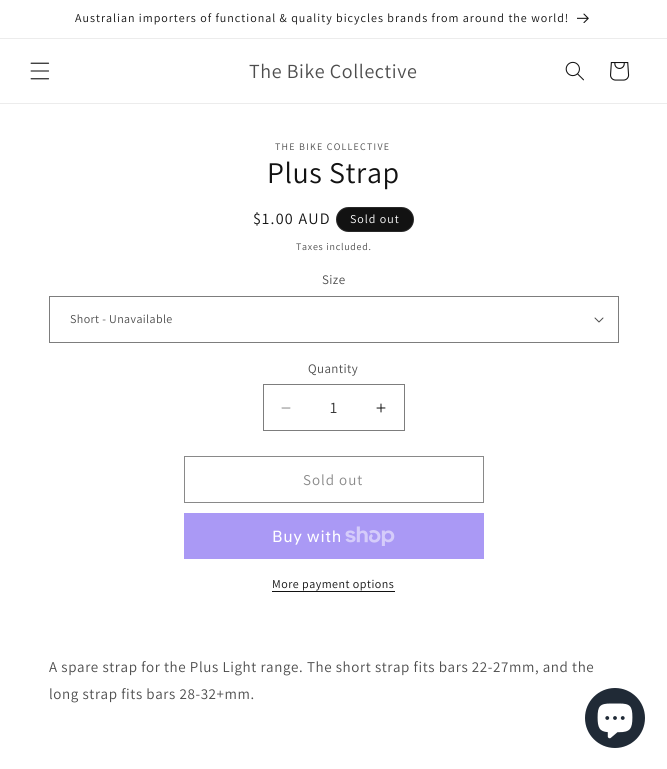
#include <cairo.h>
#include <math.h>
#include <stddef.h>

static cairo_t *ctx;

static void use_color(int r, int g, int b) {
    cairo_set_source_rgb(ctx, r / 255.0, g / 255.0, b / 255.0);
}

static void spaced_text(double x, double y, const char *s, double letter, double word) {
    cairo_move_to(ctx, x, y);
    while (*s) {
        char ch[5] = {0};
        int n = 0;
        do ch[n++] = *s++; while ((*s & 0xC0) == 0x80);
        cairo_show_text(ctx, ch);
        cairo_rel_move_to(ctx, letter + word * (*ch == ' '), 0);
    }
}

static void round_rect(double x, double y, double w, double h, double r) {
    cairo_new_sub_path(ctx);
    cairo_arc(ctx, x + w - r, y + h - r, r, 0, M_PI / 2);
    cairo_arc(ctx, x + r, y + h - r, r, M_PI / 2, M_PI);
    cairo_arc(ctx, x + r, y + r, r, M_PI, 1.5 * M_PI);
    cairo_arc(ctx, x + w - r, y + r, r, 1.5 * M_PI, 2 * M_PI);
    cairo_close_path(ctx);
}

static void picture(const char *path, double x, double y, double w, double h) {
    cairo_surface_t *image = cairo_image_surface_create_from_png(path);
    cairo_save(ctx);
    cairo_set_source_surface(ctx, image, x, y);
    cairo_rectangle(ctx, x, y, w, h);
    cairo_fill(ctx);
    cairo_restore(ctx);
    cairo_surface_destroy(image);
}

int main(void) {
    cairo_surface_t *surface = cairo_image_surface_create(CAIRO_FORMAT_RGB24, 667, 769);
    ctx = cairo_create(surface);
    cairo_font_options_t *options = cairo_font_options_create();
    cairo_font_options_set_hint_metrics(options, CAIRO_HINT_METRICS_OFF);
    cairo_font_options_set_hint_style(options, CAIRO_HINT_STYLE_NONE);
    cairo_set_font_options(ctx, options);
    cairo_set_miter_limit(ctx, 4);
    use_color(255, 255, 255);
    cairo_paint(ctx);
    use_color(236, 236, 236);
    cairo_rectangle(ctx, 0, 38, 667, 1);
    cairo_fill(ctx);
    cairo_select_font_face(ctx, "Assistant", CAIRO_FONT_SLANT_NORMAL, CAIRO_FONT_WEIGHT_NORMAL);
    cairo_set_font_size(ctx, 12);
    use_color(18, 18, 18);
    spaced_text(75, 22, "Australian importers of functional & quality bicycles brands from around the world!", 1, 0);
    picture("img1.png", 577, 13, 12, 10);
    use_color(236, 236, 236);
    cairo_rectangle(ctx, 0, 103, 667, 1);
    cairo_fill(ctx);
    picture("img2.png", 30, 62, 20, 18);
    cairo_set_font_size(ctx, 20);
    use_color(77, 77, 77);
    spaced_text(249, 78, "The Bike Collective", 0.6, 0);
    picture("img3.png", 565, 61, 19, 20);
    picture("img4.png", 610, 62, 20, 19);
    cairo_set_font_size(ctx, 10);
    spaced_text(275, 150, "THE BIKE COLLECTIVE", 1.25, 0);
    cairo_set_font_size(ctx, 30);
    use_color(18, 18, 18);
    spaced_text(267, 183, "Plus Strap", 0.6, 0);
    cairo_set_font_size(ctx, 16);
    spaced_text(253, 224, "$1.00 AUD", 1.25, 0);
    round_rect(336, 207, 78, 25, 12.5);
    cairo_fill(ctx);
    round_rect(336.5, 207.5, 77, 24, 12);
    cairo_set_source_rgba(ctx, 1, 1, 1, 0.1);
    cairo_set_line_width(ctx, 1);
    cairo_stroke(ctx);
    cairo_set_font_size(ctx, 12);
    use_color(255, 255, 255);
    spaced_text(350, 223, "Sold out", 1, 0);
    cairo_set_font_size(ctx, 10);
    use_color(77, 77, 77);
    spaced_text(296, 250, "Taxes included.", 0.75, 0);
    cairo_set_font_size(ctx, 13);
    spaced_text(322, 284, "Size", 0.4, 0);
    picture("img5.png", 594, 317, 10, 6);
    cairo_rectangle(ctx, 49.5, 296.5, 569, 46);
    use_color(125, 125, 125);
    cairo_stroke(ctx);
    cairo_set_font_size(ctx, 12);
    use_color(77, 77, 77);
    spaced_text(70, 323, "Short - Unavailable", 0.4, 0);
    cairo_set_font_size(ctx, 13);
    spaced_text(308, 373, "Quantity", 0.4, 0);
    picture("img6.png", 281, 407, 10, 2);
    picture("img7.png", 376, 403, 10, 10);
    cairo_rectangle(ctx, 263.5, 384.5, 141, 46);
    use_color(125, 125, 125);
    cairo_stroke(ctx);
    cairo_set_font_size(ctx, 16);
    use_color(54, 54, 54);
    cairo_move_to(ctx, 330, 413);
    cairo_show_text(ctx, "1");
    cairo_rectangle(ctx, 184.5, 456.5, 299, 46);
    use_color(137, 137, 137);
    cairo_stroke(ctx);
    cairo_set_font_size(ctx, 15);
    spaced_text(303, 485, "Sold out", 1, 0);
    use_color(170, 153, 245);
    cairo_rectangle(ctx, 184, 513, 300, 46);
    cairo_fill(ctx);
    cairo_select_font_face(ctx, "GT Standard", CAIRO_FONT_SLANT_NORMAL, CAIRO_FONT_WEIGHT_NORMAL);
    cairo_set_font_size(ctx, 16);
    use_color(255, 255, 255);
    spaced_text(272, 542, "Buy with", 0.6, 0);
    picture("img8.png", 345, 526, 50, 20);
    cairo_select_font_face(ctx, "Assistant", CAIRO_FONT_SLANT_NORMAL, CAIRO_FONT_WEIGHT_NORMAL);
    cairo_set_font_size(ctx, 12);
    use_color(18, 18, 18);
    spaced_text(272, 588, "More payment options", 0.5, 0);
    cairo_rectangle(ctx, 272, 591, 123, 1);
    cairo_fill(ctx);
    cairo_set_font_size(ctx, 15);
    use_color(77, 77, 77);
    spaced_text(49, 672, "A spare strap for the Plus Light range. The short strap fits bars 22-27mm, and the", 0.6, 0);
    spaced_text(49, 699, "long strap fits bars 28-32+mm.", 0.6, 0);
    use_color(32, 42, 54);
    cairo_new_path(ctx);
    cairo_arc(ctx, 615, 718, 30, 0, 2 * M_PI);
    cairo_fill(ctx);
    picture("img9.png", 597, 703, 36, 36);
    cairo_surface_write_to_png(surface, "result.png");
    cairo_font_options_destroy(options);
    cairo_destroy(ctx);
    cairo_surface_destroy(surface);
    return 0;
}
